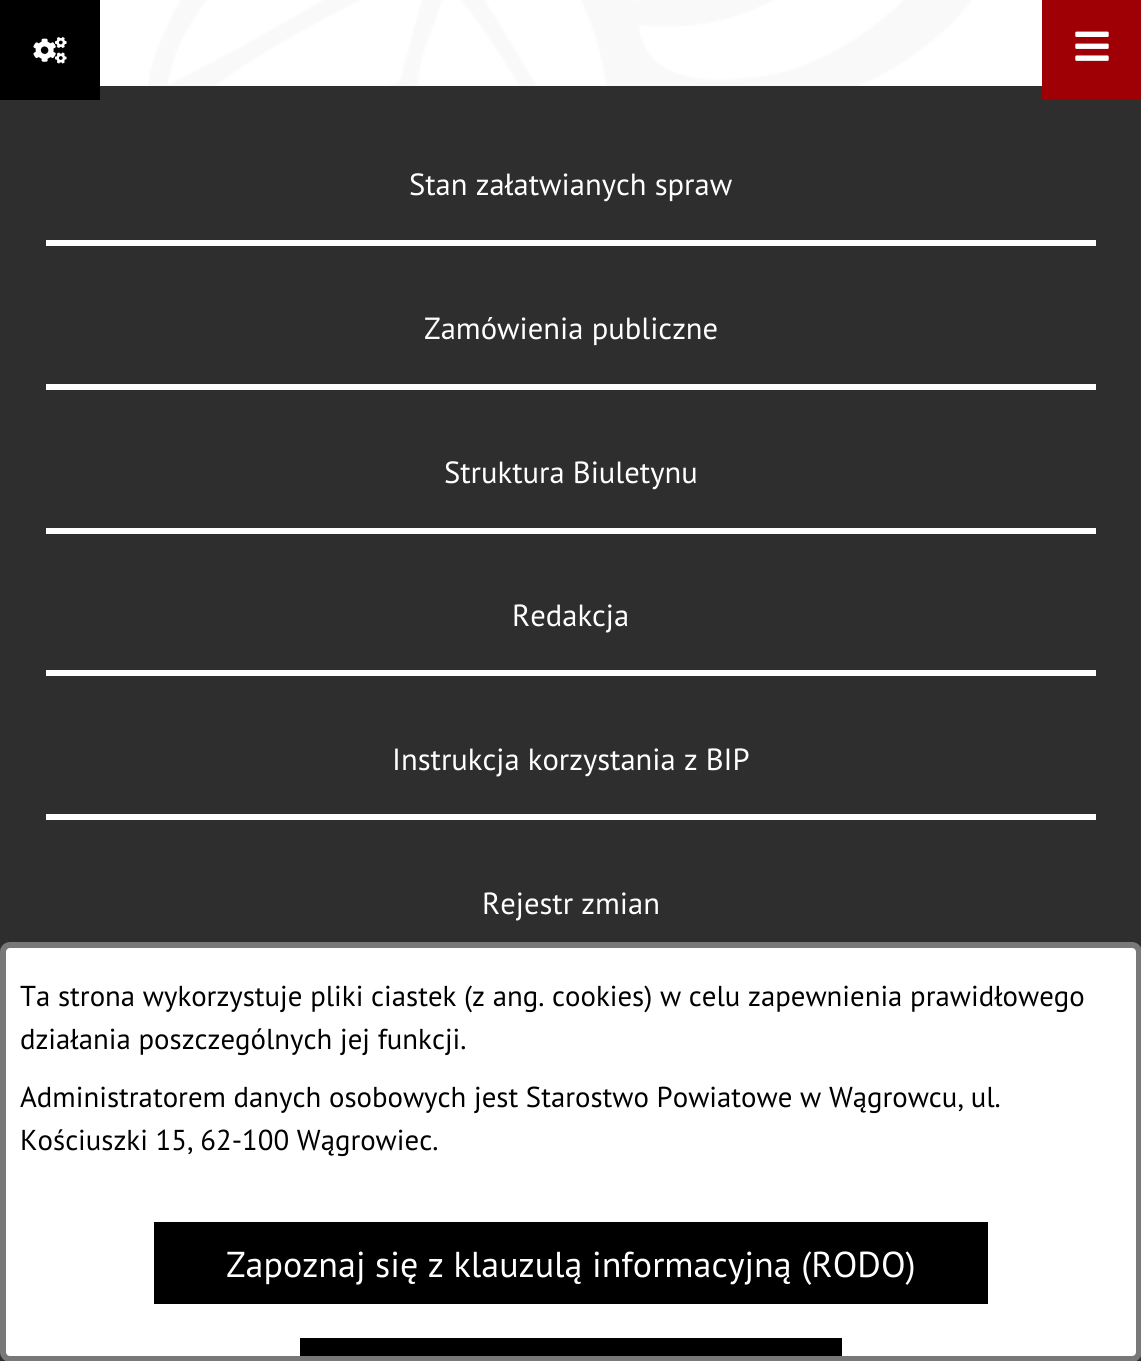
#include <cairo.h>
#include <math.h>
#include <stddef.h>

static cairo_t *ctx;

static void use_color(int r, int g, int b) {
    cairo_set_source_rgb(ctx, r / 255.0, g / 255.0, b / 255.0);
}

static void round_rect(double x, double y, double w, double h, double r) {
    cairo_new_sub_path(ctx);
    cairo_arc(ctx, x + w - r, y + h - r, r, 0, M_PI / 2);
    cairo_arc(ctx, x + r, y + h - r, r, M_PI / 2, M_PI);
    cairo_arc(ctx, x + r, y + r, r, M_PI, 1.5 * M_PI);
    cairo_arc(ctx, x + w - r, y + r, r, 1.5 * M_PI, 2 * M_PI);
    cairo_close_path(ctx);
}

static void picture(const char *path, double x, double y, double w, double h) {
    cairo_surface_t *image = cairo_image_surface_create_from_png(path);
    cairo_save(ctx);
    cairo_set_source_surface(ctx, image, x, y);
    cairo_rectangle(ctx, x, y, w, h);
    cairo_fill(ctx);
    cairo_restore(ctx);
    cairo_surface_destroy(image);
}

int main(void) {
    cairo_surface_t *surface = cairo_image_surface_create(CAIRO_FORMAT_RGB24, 1141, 1361);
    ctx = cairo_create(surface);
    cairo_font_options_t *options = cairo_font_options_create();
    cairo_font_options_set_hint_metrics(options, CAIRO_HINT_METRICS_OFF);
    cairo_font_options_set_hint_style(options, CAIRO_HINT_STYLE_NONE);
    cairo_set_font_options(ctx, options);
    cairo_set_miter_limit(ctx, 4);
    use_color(255, 255, 255);
    cairo_paint(ctx);
    use_color(46, 46, 46);
    cairo_rectangle(ctx, 0, 86, 1141, 1275);
    cairo_fill(ctx);
    use_color(0, 0, 0);
    cairo_rectangle(ctx, 0, 0, 100, 100);
    cairo_fill(ctx);
    picture("img1.png", 33, 37, 34, 27);
    use_color(158, 0, 5);
    cairo_rectangle(ctx, 1042, 0, 99, 100);
    cairo_fill(ctx);
    picture("img2.png", 1075, 31, 34, 30);
    picture("img3.png", 148, 0, 824, 86);
    use_color(255, 255, 255);
    cairo_rectangle(ctx, 46, 240, 1050, 6);
    cairo_fill(ctx);
    cairo_select_font_face(ctx, "PT Sans", CAIRO_FONT_SLANT_NORMAL, CAIRO_FONT_WEIGHT_NORMAL);
    cairo_set_font_size(ctx, 30.6);
    cairo_move_to(ctx, 409, 195);
    cairo_show_text(ctx, "Stan załatwianych spraw");
    cairo_rectangle(ctx, 46, 384, 1050, 6);
    cairo_fill(ctx);
    cairo_move_to(ctx, 424, 339);
    cairo_show_text(ctx, "Zamówienia publiczne");
    cairo_rectangle(ctx, 46, 528, 1050, 6);
    cairo_fill(ctx);
    cairo_move_to(ctx, 444, 483);
    cairo_show_text(ctx, "Struktura Biuletynu");
    cairo_rectangle(ctx, 46, 670, 1050, 6);
    cairo_fill(ctx);
    cairo_move_to(ctx, 512, 626);
    cairo_show_text(ctx, "Redakcja");
    cairo_rectangle(ctx, 46, 814, 1050, 6);
    cairo_fill(ctx);
    cairo_move_to(ctx, 392, 770);
    cairo_show_text(ctx, "Instrukcja korzystania z BIP");
    cairo_move_to(ctx, 482, 914);
    cairo_show_text(ctx, "Rejestr zmian");
    round_rect(3, 945, 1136, 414, 7);
    cairo_fill_preserve(ctx);
    use_color(120, 120, 120);
    cairo_set_line_width(ctx, 6);
    cairo_stroke(ctx);
    cairo_set_font_size(ctx, 28.8);
    use_color(0, 0, 0);
    cairo_move_to(ctx, 20, 1006);
    cairo_show_text(ctx, "Ta strona wykorzystuje pliki ciastek (z ang. cookies) w celu zapewnienia prawidłowego");
    cairo_move_to(ctx, 20, 1049);
    cairo_show_text(ctx, "działania poszczególnych jej funkcji.");
    cairo_move_to(ctx, 20, 1107);
    cairo_show_text(ctx, "Administratorem danych osobowych jest Starostwo Powiatowe w Wągrowcu, ul.");
    cairo_move_to(ctx, 20, 1150);
    cairo_show_text(ctx, "Kościuszki 15, 62-100 Wągrowiec.");
    cairo_rectangle(ctx, 154, 1222, 834, 82);
    cairo_fill(ctx);
    cairo_set_font_size(ctx, 36);
    use_color(255, 255, 255);
    cairo_move_to(ctx, 226, 1277);
    cairo_show_text(ctx, "Zapoznaj się z klauzulą informacyjną (RODO)");
    use_color(0, 0, 0);
    cairo_rectangle(ctx, 300, 1338, 542, 18);
    cairo_fill(ctx);
    cairo_surface_write_to_png(surface, "result.png");
    cairo_font_options_destroy(options);
    cairo_destroy(ctx);
    cairo_surface_destroy(surface);
    return 0;
}
